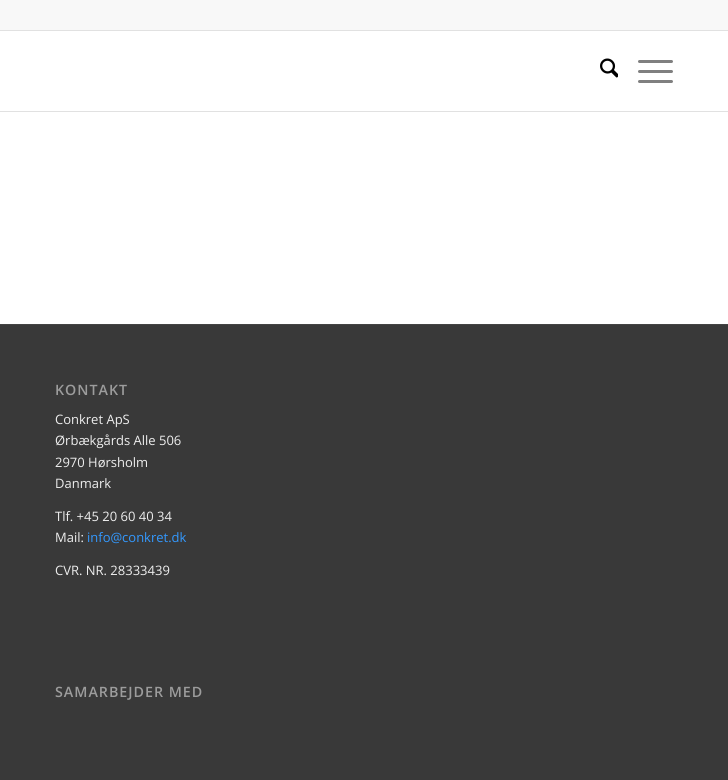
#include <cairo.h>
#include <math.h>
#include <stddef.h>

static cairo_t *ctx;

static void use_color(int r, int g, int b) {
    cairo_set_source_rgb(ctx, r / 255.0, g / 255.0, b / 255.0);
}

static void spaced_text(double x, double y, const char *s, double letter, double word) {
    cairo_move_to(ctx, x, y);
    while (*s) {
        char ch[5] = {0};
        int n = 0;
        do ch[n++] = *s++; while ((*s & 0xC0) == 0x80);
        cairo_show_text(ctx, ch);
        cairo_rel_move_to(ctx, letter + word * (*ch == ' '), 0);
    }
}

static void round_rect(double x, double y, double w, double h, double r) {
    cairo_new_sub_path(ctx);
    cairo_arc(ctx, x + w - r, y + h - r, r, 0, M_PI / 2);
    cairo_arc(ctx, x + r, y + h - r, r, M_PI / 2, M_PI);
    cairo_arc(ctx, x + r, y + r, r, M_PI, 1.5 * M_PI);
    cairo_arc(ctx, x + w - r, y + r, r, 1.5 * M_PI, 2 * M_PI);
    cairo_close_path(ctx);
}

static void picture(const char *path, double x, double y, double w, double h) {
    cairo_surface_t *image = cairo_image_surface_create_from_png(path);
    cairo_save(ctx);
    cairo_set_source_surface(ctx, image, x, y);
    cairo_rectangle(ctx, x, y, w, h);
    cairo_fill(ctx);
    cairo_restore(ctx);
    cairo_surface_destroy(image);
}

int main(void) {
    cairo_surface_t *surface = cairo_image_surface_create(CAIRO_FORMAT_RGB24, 728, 780);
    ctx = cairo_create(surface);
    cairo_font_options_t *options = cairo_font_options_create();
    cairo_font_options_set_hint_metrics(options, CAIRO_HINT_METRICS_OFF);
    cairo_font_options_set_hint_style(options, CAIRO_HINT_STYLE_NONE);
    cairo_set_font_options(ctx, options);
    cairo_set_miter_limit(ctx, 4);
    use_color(255, 255, 255);
    cairo_paint(ctx);
    use_color(248, 248, 248);
    cairo_rectangle(ctx, 0, 0, 728, 30);
    cairo_fill(ctx);
    use_color(225, 225, 225);
    cairo_rectangle(ctx, 0, 30, 728, 1);
    cairo_fill(ctx);
    cairo_rectangle(ctx, 0, 111, 728, 1);
    cairo_fill(ctx);
    picture("img1.png", 600, 58, 18, 20);
    use_color(128, 128, 128);
    round_rect(638, 70, 35, 3, 1.5);
    cairo_fill(ctx);
    round_rect(638, 60, 35, 3, 1.5);
    cairo_fill(ctx);
    round_rect(638, 80, 35, 3, 1.5);
    cairo_fill(ctx);
    use_color(57, 57, 57);
    cairo_rectangle(ctx, 0, 325, 728, 455);
    cairo_fill(ctx);
    use_color(68, 68, 68);
    cairo_rectangle(ctx, 0, 324, 728, 1);
    cairo_fill(ctx);
    cairo_select_font_face(ctx, "Open Sans SemiBold", CAIRO_FONT_SLANT_NORMAL, CAIRO_FONT_WEIGHT_NORMAL);
    cairo_set_font_size(ctx, 14.25);
    use_color(156, 156, 156);
    spaced_text(55, 395, "KONTAKT", 1, 0);
    cairo_select_font_face(ctx, "Open Sans", CAIRO_FONT_SLANT_NORMAL, CAIRO_FONT_WEIGHT_NORMAL);
    cairo_set_font_size(ctx, 13);
    use_color(238, 238, 238);
    cairo_move_to(ctx, 55, 424);
    cairo_show_text(ctx, "Conkret ApS");
    cairo_move_to(ctx, 55, 445);
    cairo_show_text(ctx, "Ørbækgårds Alle 506");
    cairo_move_to(ctx, 55, 467);
    cairo_show_text(ctx, "2970 Hørsholm");
    cairo_move_to(ctx, 55, 488);
    cairo_show_text(ctx, "Danmark");
    cairo_move_to(ctx, 55, 521);
    cairo_show_text(ctx, "Tlf. +45 20 60 40 34");
    cairo_move_to(ctx, 55, 542);
    cairo_show_text(ctx, "Mail:");
    use_color(51, 153, 255);
    cairo_move_to(ctx, 87, 542);
    cairo_show_text(ctx, "info@conkret.dk");
    use_color(238, 238, 238);
    cairo_move_to(ctx, 55, 575);
    cairo_show_text(ctx, "CVR. NR. 28333439");
    cairo_select_font_face(ctx, "Open Sans SemiBold", CAIRO_FONT_SLANT_NORMAL, CAIRO_FONT_WEIGHT_NORMAL);
    cairo_set_font_size(ctx, 14.25);
    use_color(156, 156, 156);
    spaced_text(55, 697, "SAMARBEJDER MED", 1, 0);
    cairo_surface_write_to_png(surface, "result.png");
    cairo_font_options_destroy(options);
    cairo_destroy(ctx);
    cairo_surface_destroy(surface);
    return 0;
}
